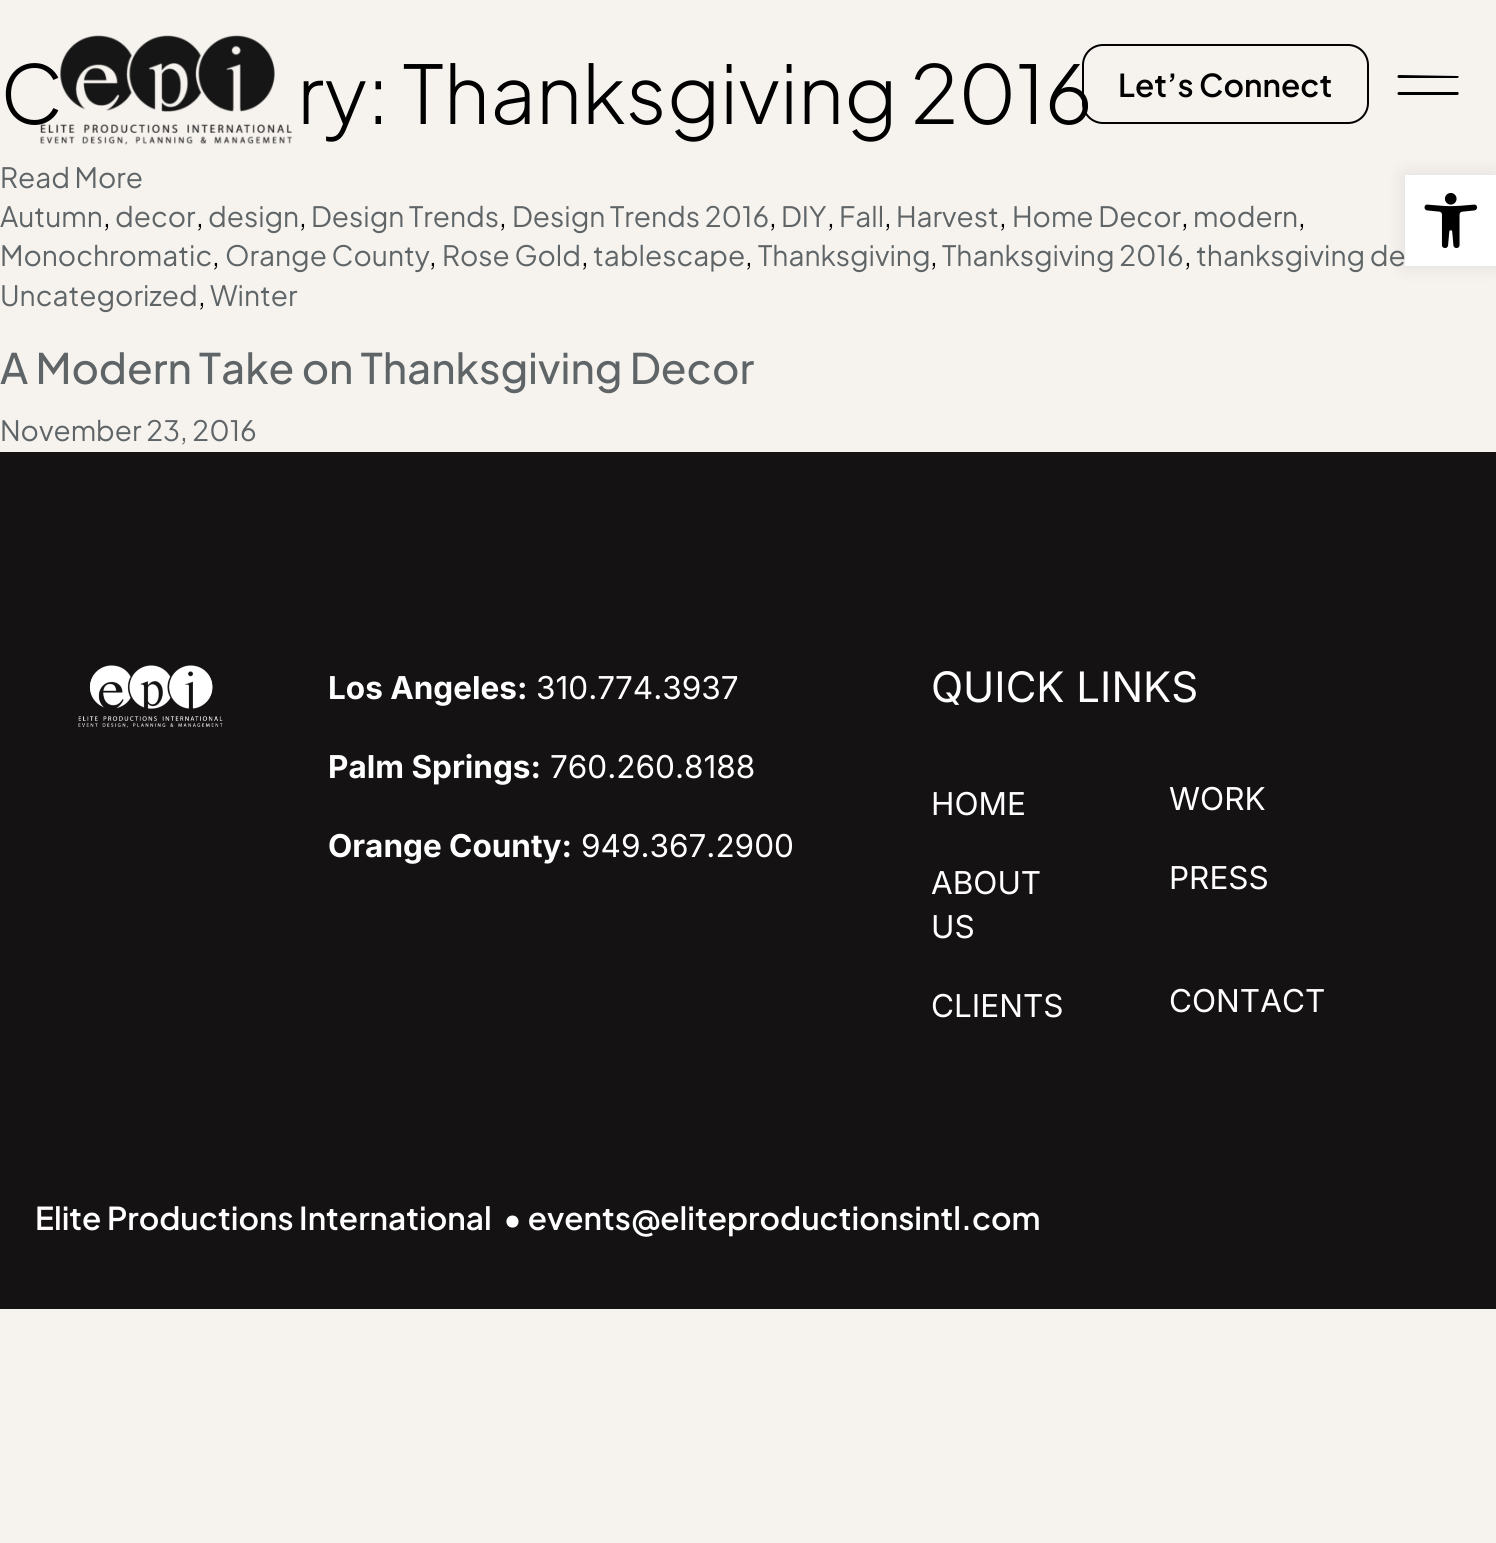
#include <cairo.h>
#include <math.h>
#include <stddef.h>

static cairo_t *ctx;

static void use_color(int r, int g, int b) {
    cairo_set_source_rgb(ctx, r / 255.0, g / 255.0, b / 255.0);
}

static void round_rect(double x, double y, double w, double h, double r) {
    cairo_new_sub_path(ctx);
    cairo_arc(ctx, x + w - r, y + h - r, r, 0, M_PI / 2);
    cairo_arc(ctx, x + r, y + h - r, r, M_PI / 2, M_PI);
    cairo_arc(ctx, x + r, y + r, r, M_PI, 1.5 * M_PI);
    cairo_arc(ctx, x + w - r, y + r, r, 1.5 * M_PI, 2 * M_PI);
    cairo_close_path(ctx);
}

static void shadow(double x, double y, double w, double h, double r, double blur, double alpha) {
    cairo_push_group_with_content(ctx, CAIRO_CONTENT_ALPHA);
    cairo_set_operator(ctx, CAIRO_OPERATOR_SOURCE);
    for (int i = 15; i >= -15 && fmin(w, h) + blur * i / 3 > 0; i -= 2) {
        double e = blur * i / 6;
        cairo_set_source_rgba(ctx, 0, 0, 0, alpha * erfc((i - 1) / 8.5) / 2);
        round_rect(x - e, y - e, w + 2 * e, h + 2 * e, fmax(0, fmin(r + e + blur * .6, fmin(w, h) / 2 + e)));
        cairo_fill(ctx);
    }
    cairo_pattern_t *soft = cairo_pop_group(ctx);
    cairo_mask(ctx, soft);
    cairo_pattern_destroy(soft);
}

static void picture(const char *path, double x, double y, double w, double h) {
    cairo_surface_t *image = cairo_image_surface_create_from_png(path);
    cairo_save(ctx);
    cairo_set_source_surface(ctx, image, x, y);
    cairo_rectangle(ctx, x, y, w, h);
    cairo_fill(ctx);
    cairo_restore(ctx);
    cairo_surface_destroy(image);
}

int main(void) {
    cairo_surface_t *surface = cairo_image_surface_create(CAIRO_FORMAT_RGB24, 1496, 1543);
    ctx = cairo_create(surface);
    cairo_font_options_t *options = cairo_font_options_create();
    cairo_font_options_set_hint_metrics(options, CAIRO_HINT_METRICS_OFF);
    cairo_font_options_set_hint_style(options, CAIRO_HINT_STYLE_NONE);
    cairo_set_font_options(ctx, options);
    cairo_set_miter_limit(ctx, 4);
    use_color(246, 243, 239);
    cairo_paint(ctx);
    cairo_select_font_face(ctx, "Plus Jakarta Sans Light", CAIRO_FONT_SLANT_NORMAL, CAIRO_FONT_WEIGHT_NORMAL);
    cairo_set_font_size(ctx, 80.5);
    use_color(0, 0, 0);
    cairo_move_to(ctx, 0, 124);
    cairo_show_text(ctx, "C");
    cairo_move_to(ctx, 297, 124);
    cairo_show_text(ctx, "ry: Thanksgiving 2016");
    cairo_select_font_face(ctx, "Plus Jakarta Sans", CAIRO_FONT_SLANT_NORMAL, CAIRO_FONT_WEIGHT_NORMAL);
    cairo_set_font_size(ctx, 28);
    use_color(95, 101, 103);
    cairo_move_to(ctx, 0, 188);
    cairo_show_text(ctx, "Read More");
    cairo_move_to(ctx, 0, 227);
    cairo_show_text(ctx, "Autumn");
    use_color(0, 0, 0);
    cairo_move_to(ctx, 103, 227);
    cairo_show_text(ctx, ",");
    use_color(95, 101, 103);
    cairo_move_to(ctx, 115, 227);
    cairo_show_text(ctx, "decor");
    use_color(0, 0, 0);
    cairo_move_to(ctx, 196, 227);
    cairo_show_text(ctx, ",");
    use_color(95, 101, 103);
    cairo_move_to(ctx, 208, 227);
    cairo_show_text(ctx, "design");
    use_color(0, 0, 0);
    cairo_move_to(ctx, 299, 227);
    cairo_show_text(ctx, ",");
    use_color(95, 101, 103);
    cairo_move_to(ctx, 311, 227);
    cairo_show_text(ctx, "Design Trends");
    use_color(0, 0, 0);
    cairo_move_to(ctx, 499, 227);
    cairo_show_text(ctx, ",");
    use_color(95, 101, 103);
    cairo_move_to(ctx, 512, 227);
    cairo_show_text(ctx, "Design Trends 2016");
    use_color(0, 0, 0);
    cairo_move_to(ctx, 769, 227);
    cairo_show_text(ctx, ",");
    use_color(95, 101, 103);
    cairo_move_to(ctx, 781, 227);
    cairo_show_text(ctx, "DIY");
    use_color(0, 0, 0);
    cairo_move_to(ctx, 827, 227);
    cairo_show_text(ctx, ",");
    use_color(95, 101, 103);
    cairo_move_to(ctx, 839, 227);
    cairo_show_text(ctx, "Fall");
    use_color(0, 0, 0);
    cairo_move_to(ctx, 884, 227);
    cairo_show_text(ctx, ",");
    use_color(95, 101, 103);
    cairo_move_to(ctx, 896, 227);
    cairo_show_text(ctx, "Harvest");
    use_color(0, 0, 0);
    cairo_move_to(ctx, 999, 227);
    cairo_show_text(ctx, ",");
    use_color(95, 101, 103);
    cairo_move_to(ctx, 1012, 227);
    cairo_show_text(ctx, "Home Decor");
    use_color(0, 0, 0);
    cairo_move_to(ctx, 1181, 227);
    cairo_show_text(ctx, ",");
    use_color(95, 101, 103);
    cairo_move_to(ctx, 1193, 227);
    cairo_show_text(ctx, "modern");
    use_color(0, 0, 0);
    cairo_move_to(ctx, 1298, 227);
    cairo_show_text(ctx, ",");
    use_color(95, 101, 103);
    cairo_move_to(ctx, 0, 266);
    cairo_show_text(ctx, "Monochromatic");
    use_color(0, 0, 0);
    cairo_move_to(ctx, 212, 266);
    cairo_show_text(ctx, ",");
    use_color(95, 101, 103);
    cairo_move_to(ctx, 225, 266);
    cairo_show_text(ctx, "Orange County");
    use_color(0, 0, 0);
    cairo_move_to(ctx, 429, 266);
    cairo_show_text(ctx, ",");
    use_color(95, 101, 103);
    cairo_move_to(ctx, 442, 266);
    cairo_show_text(ctx, "Rose Gold");
    use_color(0, 0, 0);
    cairo_move_to(ctx, 581, 266);
    cairo_show_text(ctx, ",");
    use_color(95, 101, 103);
    cairo_move_to(ctx, 593, 266);
    cairo_show_text(ctx, "tablescape");
    use_color(0, 0, 0);
    cairo_move_to(ctx, 745, 266);
    cairo_show_text(ctx, ",");
    use_color(95, 101, 103);
    cairo_move_to(ctx, 758, 266);
    cairo_show_text(ctx, "Thanksgiving");
    use_color(0, 0, 0);
    cairo_move_to(ctx, 930, 266);
    cairo_show_text(ctx, ",");
    use_color(95, 101, 103);
    cairo_move_to(ctx, 942, 266);
    cairo_show_text(ctx, "Thanksgiving 2016");
    use_color(0, 0, 0);
    cairo_move_to(ctx, 1184, 266);
    cairo_show_text(ctx, ",");
    use_color(95, 101, 103);
    cairo_move_to(ctx, 1196, 266);
    cairo_show_text(ctx, "thanksgiving de");
    cairo_move_to(ctx, 0, 306);
    cairo_show_text(ctx, "Uncategorized");
    use_color(0, 0, 0);
    cairo_move_to(ctx, 198, 306);
    cairo_show_text(ctx, ",");
    use_color(95, 101, 103);
    cairo_move_to(ctx, 210, 306);
    cairo_show_text(ctx, "Winter");
    cairo_select_font_face(ctx, "Plus Jakarta Sans Medium", CAIRO_FONT_SLANT_NORMAL, CAIRO_FONT_WEIGHT_NORMAL);
    cairo_set_font_size(ctx, 42);
    cairo_move_to(ctx, 0, 384);
    cairo_show_text(ctx, "A Modern Take on Thanksgiving Decor");
    cairo_select_font_face(ctx, "Plus Jakarta Sans", CAIRO_FONT_SLANT_NORMAL, CAIRO_FONT_WEIGHT_NORMAL);
    cairo_set_font_size(ctx, 28);
    cairo_move_to(ctx, 0, 441);
    cairo_show_text(ctx, "November 23, 2016");
    use_color(20, 18, 18);
    cairo_rectangle(ctx, 0, 452, 1496, 857);
    cairo_fill(ctx);
    picture("img1.png", 78, 665, 145, 63);
    cairo_select_font_face(ctx, "Inter", CAIRO_FONT_SLANT_NORMAL, CAIRO_FONT_WEIGHT_BOLD);
    cairo_set_font_size(ctx, 31.5);
    use_color(255, 255, 255);
    cairo_move_to(ctx, 328, 699);
    cairo_show_text(ctx, "Los Angeles:");
    cairo_select_font_face(ctx, "Inter", CAIRO_FONT_SLANT_NORMAL, CAIRO_FONT_WEIGHT_NORMAL);
    cairo_move_to(ctx, 536, 699);
    cairo_show_text(ctx, "310.774.3937");
    cairo_select_font_face(ctx, "Inter", CAIRO_FONT_SLANT_NORMAL, CAIRO_FONT_WEIGHT_BOLD);
    cairo_move_to(ctx, 328, 778);
    cairo_show_text(ctx, "Palm Springs:");
    cairo_select_font_face(ctx, "Inter", CAIRO_FONT_SLANT_NORMAL, CAIRO_FONT_WEIGHT_NORMAL);
    cairo_move_to(ctx, 550, 778);
    cairo_show_text(ctx, "760.260.8188");
    cairo_select_font_face(ctx, "Inter", CAIRO_FONT_SLANT_NORMAL, CAIRO_FONT_WEIGHT_BOLD);
    cairo_move_to(ctx, 328, 857);
    cairo_show_text(ctx, "Orange County:");
    cairo_select_font_face(ctx, "Inter", CAIRO_FONT_SLANT_NORMAL, CAIRO_FONT_WEIGHT_NORMAL);
    cairo_move_to(ctx, 581, 857);
    cairo_show_text(ctx, "949.367.2900");
    cairo_set_font_size(ctx, 42);
    cairo_move_to(ctx, 931, 702);
    cairo_show_text(ctx, "QUICK LINKS");
    cairo_set_font_size(ctx, 31.5);
    cairo_move_to(ctx, 931, 815);
    cairo_show_text(ctx, "HOME");
    cairo_move_to(ctx, 1169, 810);
    cairo_show_text(ctx, "WORK");
    cairo_move_to(ctx, 931, 894);
    cairo_show_text(ctx, "ABOUT");
    cairo_move_to(ctx, 931, 938);
    cairo_show_text(ctx, "US");
    cairo_move_to(ctx, 1169, 889);
    cairo_show_text(ctx, "PRESS");
    cairo_move_to(ctx, 931, 1017);
    cairo_show_text(ctx, "CLIENTS");
    cairo_move_to(ctx, 1169, 1012);
    cairo_show_text(ctx, "CONTACT");
    cairo_select_font_face(ctx, "Plus Jakarta Sans SemiBold", CAIRO_FONT_SLANT_NORMAL, CAIRO_FONT_WEIGHT_NORMAL);
    cairo_move_to(ctx, 35, 1230);
    cairo_show_text(ctx, "Elite Productions International  • events@eliteproductionsintl.com");
    picture("img2.png", 40, 35, 253, 110);
    round_rect(1083, 45, 285, 78, 20);
    use_color(0, 0, 0);
    cairo_stroke(ctx);
    cairo_move_to(ctx, 1118, 97);
    cairo_show_text(ctx, "Let’s Connect");
    cairo_new_path(ctx);
    cairo_move_to(ctx, 1399, 75);
    cairo_curve_to(ctx, 1397, 75, 1397, 78, 1399, 78);
    cairo_line_to(ctx, 1457, 78);
    cairo_curve_to(ctx, 1459, 78, 1459, 76, 1458, 76);
    cairo_close_path(ctx);
    cairo_move_to(ctx, 1399, 92);
    cairo_curve_to(ctx, 1397, 92, 1397, 95, 1399, 95);
    cairo_line_to(ctx, 1457, 95);
    cairo_curve_to(ctx, 1459, 95, 1459, 93, 1458, 92);
    cairo_close_path(ctx);
    cairo_fill(ctx);
    use_color(0, 0, 0);
    shadow(1405, 175, 91, 91, 0, 9, 0.1);
    use_color(255, 255, 255);
    cairo_rectangle(ctx, 1405, 175, 91, 91);
    cairo_fill(ctx);
    picture("img3.png", 1424, 193, 54, 56);
    cairo_surface_write_to_png(surface, "result.png");
    cairo_font_options_destroy(options);
    cairo_destroy(ctx);
    cairo_surface_destroy(surface);
    return 0;
}
